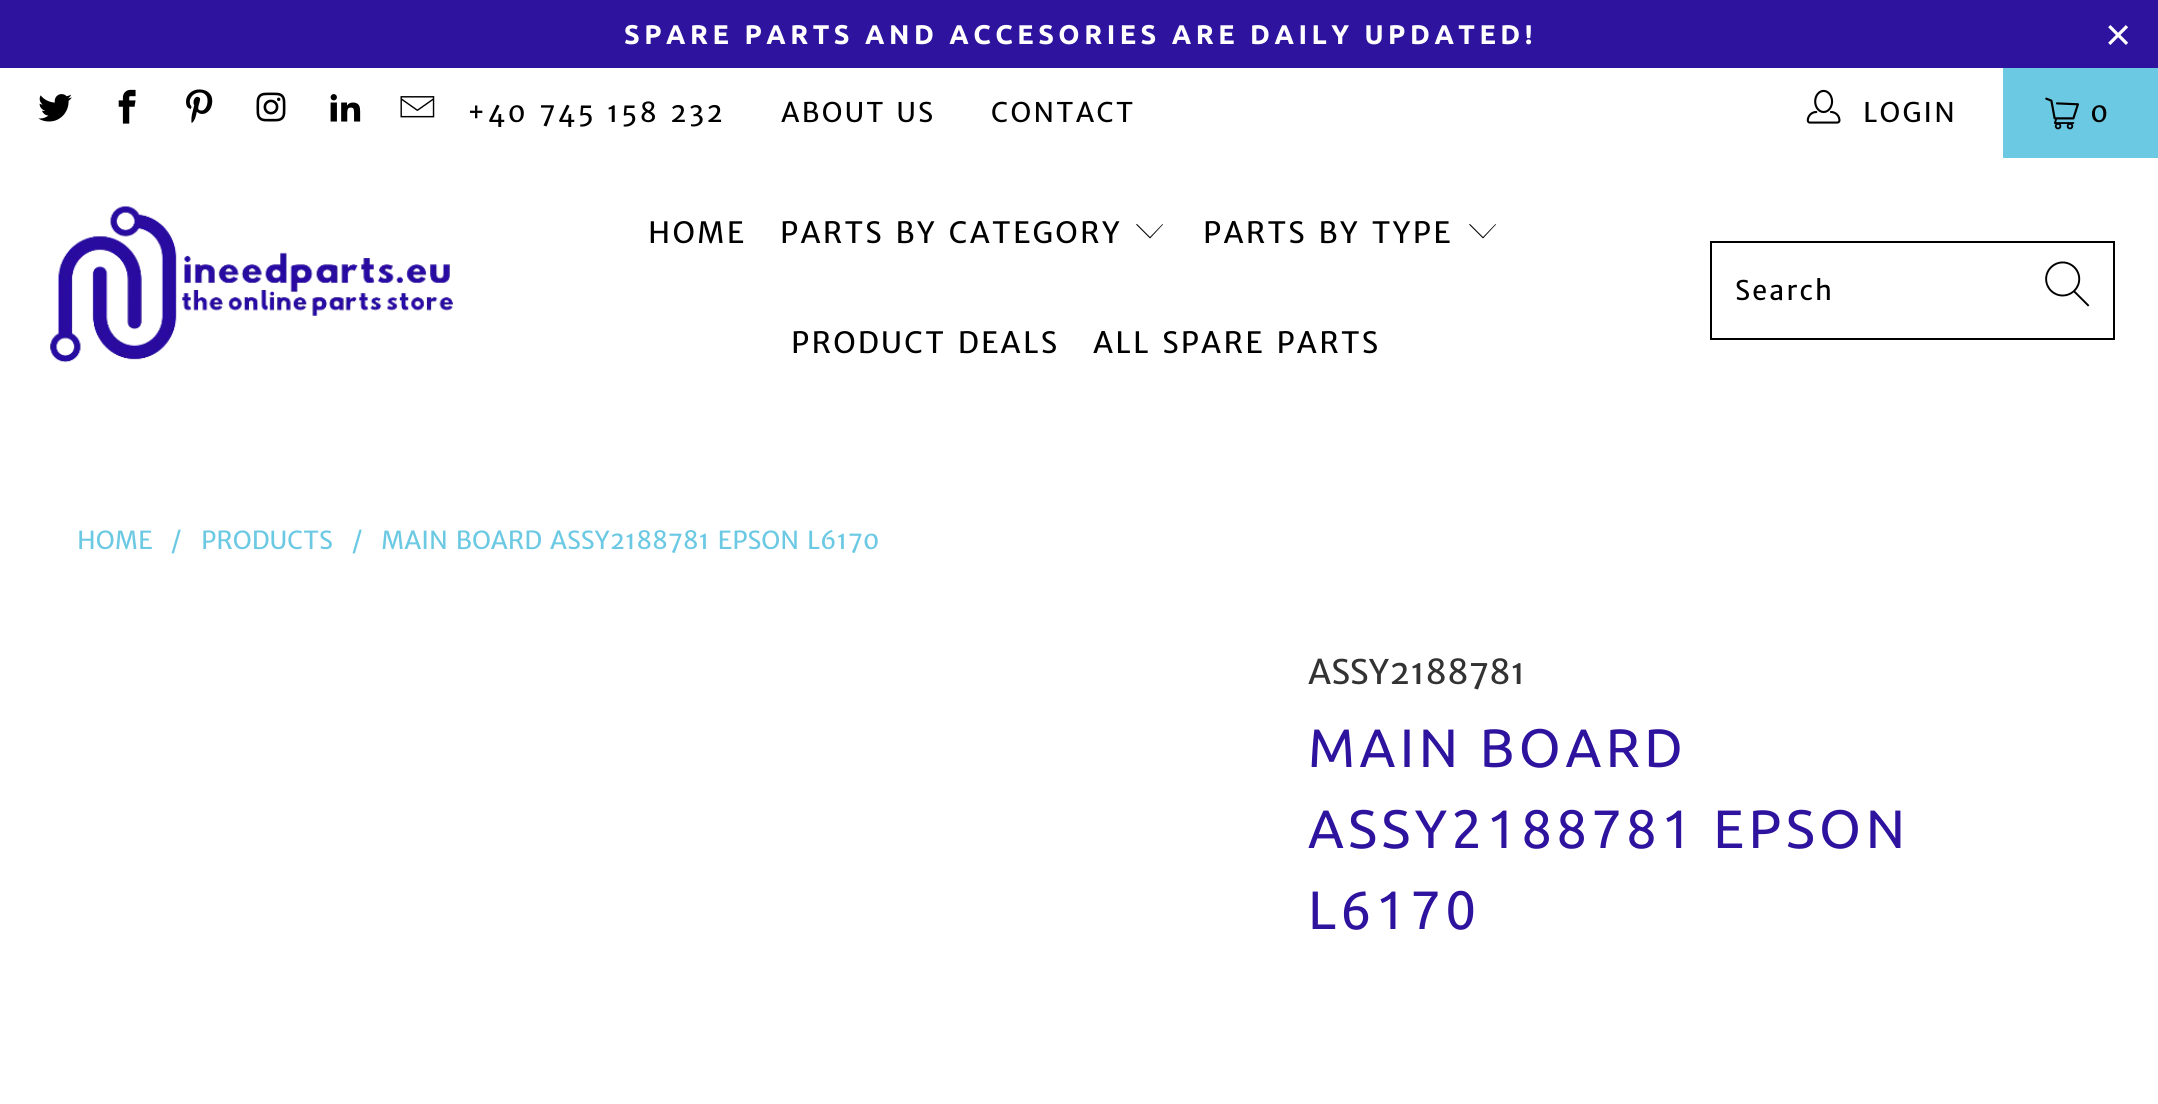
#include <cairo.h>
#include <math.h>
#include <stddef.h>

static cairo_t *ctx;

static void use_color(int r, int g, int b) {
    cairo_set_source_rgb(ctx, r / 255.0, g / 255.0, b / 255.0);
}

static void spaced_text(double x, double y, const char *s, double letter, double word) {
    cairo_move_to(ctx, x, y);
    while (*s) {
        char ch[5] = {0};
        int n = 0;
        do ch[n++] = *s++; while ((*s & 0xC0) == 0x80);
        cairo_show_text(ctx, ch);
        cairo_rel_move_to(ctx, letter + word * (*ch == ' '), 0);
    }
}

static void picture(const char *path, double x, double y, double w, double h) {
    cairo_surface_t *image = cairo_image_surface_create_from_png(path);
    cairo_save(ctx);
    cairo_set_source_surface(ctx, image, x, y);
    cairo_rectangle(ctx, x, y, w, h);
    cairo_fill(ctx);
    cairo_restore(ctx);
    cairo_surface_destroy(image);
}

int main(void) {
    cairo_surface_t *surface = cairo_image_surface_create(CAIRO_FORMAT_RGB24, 2158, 1104);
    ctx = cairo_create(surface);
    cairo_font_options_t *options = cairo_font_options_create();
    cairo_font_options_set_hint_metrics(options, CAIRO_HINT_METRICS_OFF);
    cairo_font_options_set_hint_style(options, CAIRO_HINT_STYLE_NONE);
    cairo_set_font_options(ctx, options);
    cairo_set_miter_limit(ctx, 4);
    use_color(255, 255, 255);
    cairo_paint(ctx);
    use_color(46, 19, 159);
    cairo_rectangle(ctx, 0, 0, 2158, 68);
    cairo_fill(ctx);
    cairo_select_font_face(ctx, "Ubuntu", CAIRO_FONT_SLANT_NORMAL, CAIRO_FONT_WEIGHT_BOLD);
    cairo_set_font_size(ctx, 27);
    use_color(255, 255, 255);
    spaced_text(624, 44, "SPARE PARTS AND ACCESORIES ARE DAILY UPDATED!", 4.5, 0);
    cairo_select_font_face(ctx, "Liberation Sans", CAIRO_FONT_SLANT_NORMAL, CAIRO_FONT_WEIGHT_NORMAL);
    cairo_set_font_size(ctx, 45);
    spaced_text(2105, 50, "×", 4.5, 0);
    picture("img1.png", 38, 94, 34, 28);
    picture("img2.png", 118, 89, 18, 35);
    picture("img3.png", 186, 89, 27, 34);
    picture("img4.png", 256, 92, 30, 30);
    picture("img5.png", 330, 94, 31, 28);
    picture("img6.png", 400, 96, 35, 22);
    cairo_select_font_face(ctx, "Merriweather Sans", CAIRO_FONT_SLANT_NORMAL, CAIRO_FONT_WEIGHT_NORMAL);
    cairo_set_font_size(ctx, 27);
    use_color(0, 0, 0);
    spaced_text(467, 122, "+40 745 158 232", 2.25, 0);
    spaced_text(781, 122, "ABOUT US", 2.25, 0);
    spaced_text(991, 122, "CONTACT", 2.25, 0);
    picture("img7.png", 1806, 89, 35, 35);
    spaced_text(1863, 122, "LOGIN", 2.25, 0);
    use_color(108, 201, 227);
    cairo_rectangle(ctx, 2003, 68, 155, 90);
    cairo_fill(ctx);
    picture("img8.png", 2045, 97, 34, 33);
    use_color(0, 0, 0);
    spaced_text(2090, 122, "0", 2.25, 0);
    picture("img9.png", 50, 205, 403, 158);
    cairo_set_font_size(ctx, 29.25);
    spaced_text(648, 243, "HOME", 2.25, 0);
    spaced_text(780, 243, "PARTS BY CATEGORY", 2.25, 0);
    cairo_new_path(ctx);
    cairo_move_to(ctx, 1150, 238.5);
    cairo_line_to(ctx, 1136, 224.5);
    cairo_line_to(ctx, 1137, 224);
    cairo_line_to(ctx, 1150, 237);
    cairo_line_to(ctx, 1162.5, 224);
    cairo_line_to(ctx, 1163, 224.5);
    cairo_close_path(ctx);
    cairo_fill(ctx);
    spaced_text(1203, 243, "PARTS BY TYPE", 2.25, 0);
    cairo_new_path(ctx);
    cairo_move_to(ctx, 1483, 238.5);
    cairo_line_to(ctx, 1469, 224.5);
    cairo_line_to(ctx, 1470, 224);
    cairo_line_to(ctx, 1483, 237);
    cairo_line_to(ctx, 1495.5, 224);
    cairo_line_to(ctx, 1496, 224.5);
    cairo_close_path(ctx);
    cairo_fill(ctx);
    spaced_text(791, 353, "PRODUCT DEALS", 2.25, 0);
    spaced_text(1093, 353, "ALL SPARE PARTS", 2.25, 0);
    cairo_rectangle(ctx, 1711, 242, 403, 97);
    cairo_stroke(ctx);
    cairo_set_font_size(ctx, 27);
    spaced_text(1735, 300, "Search", 2.25, 0);
    picture("img10.png", 2045, 261, 45, 46);
    cairo_set_font_size(ctx, 24.75);
    use_color(108, 201, 227);
    cairo_move_to(ctx, 77, 549);
    cairo_show_text(ctx, "HOME");
    cairo_move_to(ctx, 171, 549);
    cairo_show_text(ctx, "/");
    cairo_move_to(ctx, 201, 549);
    cairo_show_text(ctx, "PRODUCTS");
    cairo_move_to(ctx, 352, 549);
    cairo_show_text(ctx, "/");
    cairo_move_to(ctx, 381, 549);
    cairo_show_text(ctx, "MAIN BOARD ASSY2188781 EPSON L6170");
    cairo_set_font_size(ctx, 33.75);
    use_color(51, 51, 51);
    cairo_move_to(ctx, 1308, 684);
    cairo_show_text(ctx, "ASSY2188781");
    cairo_select_font_face(ctx, "Ubuntu", CAIRO_FONT_SLANT_NORMAL, CAIRO_FONT_WEIGHT_NORMAL);
    cairo_set_font_size(ctx, 54);
    use_color(46, 19, 159);
    spaced_text(1308, 767, "MAIN BOARD", 4.5, 0);
    spaced_text(1308, 848, "ASSY2188781 EPSON", 4.5, 0);
    spaced_text(1308, 929, "L6170", 4.5, 0);
    cairo_surface_write_to_png(surface, "result.png");
    cairo_font_options_destroy(options);
    cairo_destroy(ctx);
    cairo_surface_destroy(surface);
    return 0;
}
